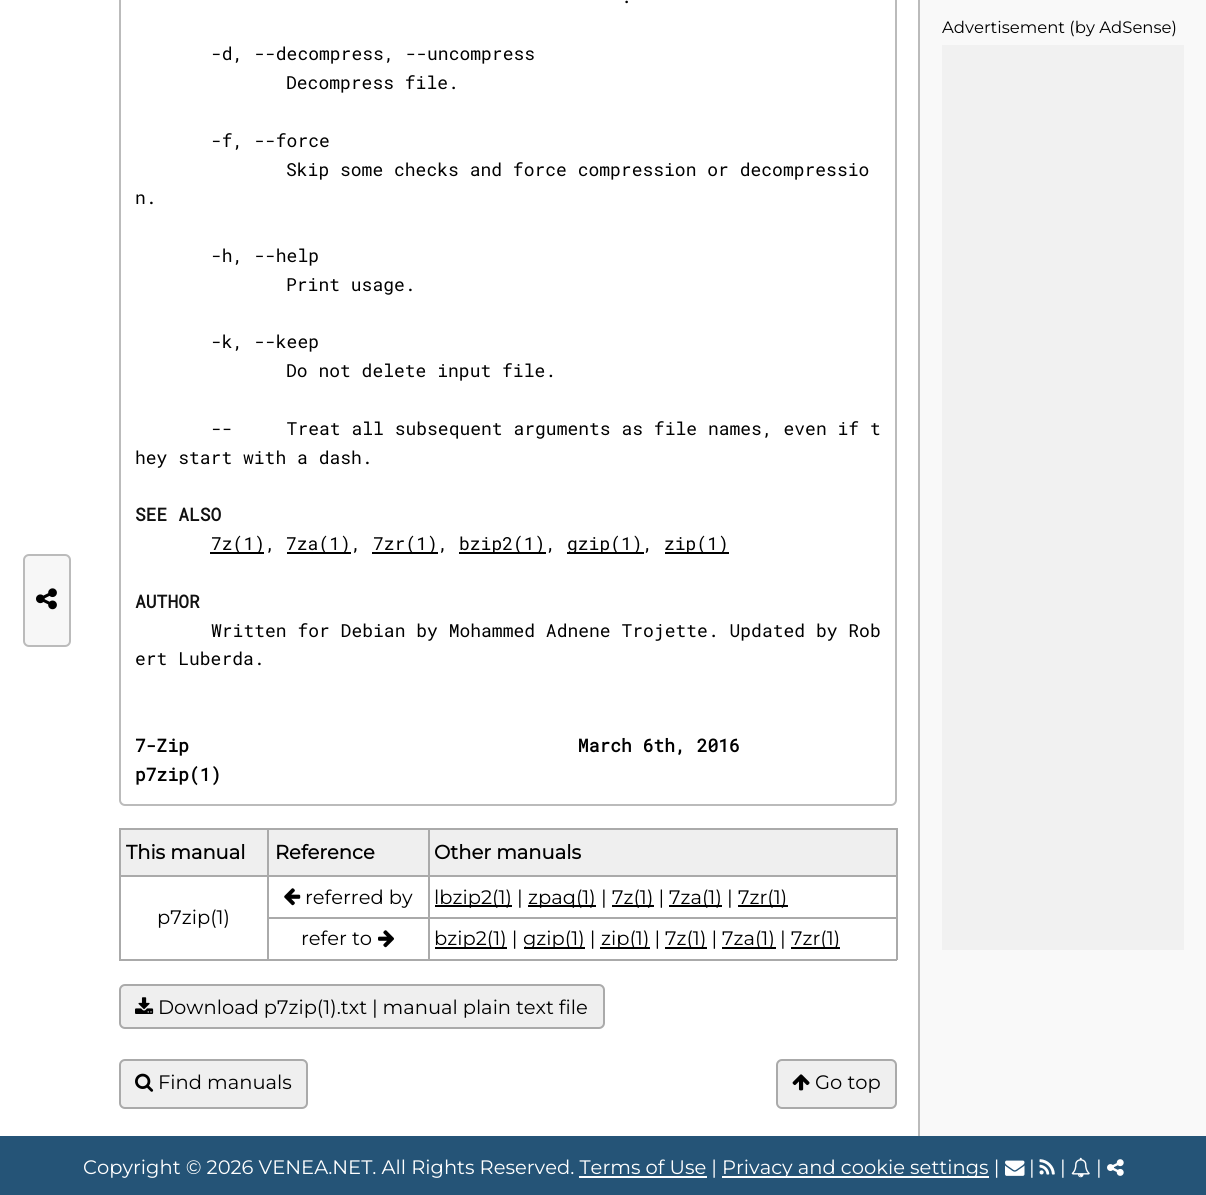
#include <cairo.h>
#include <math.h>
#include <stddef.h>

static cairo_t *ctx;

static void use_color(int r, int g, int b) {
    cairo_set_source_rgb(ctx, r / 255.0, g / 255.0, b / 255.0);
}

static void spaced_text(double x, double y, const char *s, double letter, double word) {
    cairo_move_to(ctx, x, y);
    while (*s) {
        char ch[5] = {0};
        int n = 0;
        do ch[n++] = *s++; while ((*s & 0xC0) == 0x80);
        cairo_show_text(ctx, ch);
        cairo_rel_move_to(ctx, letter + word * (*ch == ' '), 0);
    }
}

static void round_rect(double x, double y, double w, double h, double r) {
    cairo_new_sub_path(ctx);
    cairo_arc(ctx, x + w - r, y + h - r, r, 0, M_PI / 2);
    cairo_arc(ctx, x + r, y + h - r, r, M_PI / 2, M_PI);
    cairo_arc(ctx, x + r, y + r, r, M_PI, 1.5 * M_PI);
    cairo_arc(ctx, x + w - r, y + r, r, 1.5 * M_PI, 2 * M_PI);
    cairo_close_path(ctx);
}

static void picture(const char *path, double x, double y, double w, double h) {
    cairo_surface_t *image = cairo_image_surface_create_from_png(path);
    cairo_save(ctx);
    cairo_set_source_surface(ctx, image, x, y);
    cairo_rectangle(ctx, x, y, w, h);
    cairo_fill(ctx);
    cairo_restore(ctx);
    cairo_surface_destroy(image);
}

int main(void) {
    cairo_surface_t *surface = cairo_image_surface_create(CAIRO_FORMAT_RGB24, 1206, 1195);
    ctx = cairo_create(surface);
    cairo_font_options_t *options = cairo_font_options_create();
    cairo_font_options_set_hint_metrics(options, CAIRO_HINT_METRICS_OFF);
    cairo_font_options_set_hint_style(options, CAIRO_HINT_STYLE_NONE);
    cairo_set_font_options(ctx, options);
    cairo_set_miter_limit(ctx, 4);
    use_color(249, 249, 249);
    cairo_paint(ctx);
    use_color(255, 255, 255);
    cairo_rectangle(ctx, 0, 0, 918, 1136);
    cairo_fill(ctx);
    use_color(187, 187, 187);
    cairo_rectangle(ctx, 918, 0, 2, 1136);
    cairo_fill(ctx);
    round_rect(120, -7, 776, 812, 5);
    cairo_stroke(ctx);
    cairo_select_font_face(ctx, "Roboto Mono", CAIRO_FONT_SLANT_NORMAL, CAIRO_FONT_WEIGHT_NORMAL);
    cairo_set_font_size(ctx, 18);
    use_color(0, 0, 0);
    cairo_move_to(ctx, 621, 3);
    cairo_show_text(ctx, ".");
    cairo_move_to(ctx, 211, 60);
    cairo_show_text(ctx, "-d, --decompress, --uncompress");
    cairo_move_to(ctx, 286, 89);
    cairo_show_text(ctx, "Decompress file.");
    cairo_move_to(ctx, 211, 147);
    cairo_show_text(ctx, "-f, --force");
    cairo_move_to(ctx, 286, 176);
    cairo_show_text(ctx, "Skip some checks and force compression or decompressio");
    cairo_move_to(ctx, 135, 204);
    cairo_show_text(ctx, "n.");
    cairo_move_to(ctx, 211, 262);
    cairo_show_text(ctx, "-h, --help");
    cairo_move_to(ctx, 286, 291);
    cairo_show_text(ctx, "Print usage.");
    cairo_move_to(ctx, 211, 348);
    cairo_show_text(ctx, "-k, --keep");
    cairo_move_to(ctx, 286, 377);
    cairo_show_text(ctx, "Do not delete input file.");
    cairo_move_to(ctx, 211, 435);
    cairo_show_text(ctx, "--     Treat all subsequent arguments as file names, even if t");
    cairo_move_to(ctx, 135, 464);
    cairo_show_text(ctx, "hey start with a dash.");
    cairo_select_font_face(ctx, "Roboto Mono", CAIRO_FONT_SLANT_NORMAL, CAIRO_FONT_WEIGHT_BOLD);
    use_color(17, 17, 17);
    cairo_move_to(ctx, 135, 521);
    cairo_show_text(ctx, "SEE ALSO");
    use_color(0, 0, 0);
    cairo_rectangle(ctx, 210, 552, 54, 2);
    cairo_fill(ctx);
    cairo_select_font_face(ctx, "Roboto Mono", CAIRO_FONT_SLANT_NORMAL, CAIRO_FONT_WEIGHT_NORMAL);
    cairo_move_to(ctx, 211, 550);
    cairo_show_text(ctx, "7z(1),");
    cairo_rectangle(ctx, 287, 552, 64, 2);
    cairo_fill(ctx);
    cairo_move_to(ctx, 286, 550);
    cairo_show_text(ctx, "7za(1),");
    cairo_rectangle(ctx, 372, 552, 66, 2);
    cairo_fill(ctx);
    cairo_move_to(ctx, 373, 550);
    cairo_show_text(ctx, "7zr(1),");
    cairo_rectangle(ctx, 459, 552, 87, 2);
    cairo_fill(ctx);
    cairo_move_to(ctx, 459, 550);
    cairo_show_text(ctx, "bzip2(1),");
    cairo_rectangle(ctx, 567, 552, 77, 2);
    cairo_fill(ctx);
    cairo_move_to(ctx, 567, 550);
    cairo_show_text(ctx, "gzip(1),");
    cairo_rectangle(ctx, 665, 552, 64, 2);
    cairo_fill(ctx);
    cairo_move_to(ctx, 664, 550);
    cairo_show_text(ctx, "zip(1)");
    cairo_select_font_face(ctx, "Roboto Mono", CAIRO_FONT_SLANT_NORMAL, CAIRO_FONT_WEIGHT_BOLD);
    use_color(17, 17, 17);
    cairo_move_to(ctx, 135, 608);
    cairo_show_text(ctx, "AUTHOR");
    cairo_select_font_face(ctx, "Roboto Mono", CAIRO_FONT_SLANT_NORMAL, CAIRO_FONT_WEIGHT_NORMAL);
    use_color(0, 0, 0);
    cairo_move_to(ctx, 211, 637);
    cairo_show_text(ctx, "Written for Debian by Mohammed Adnene Trojette. Updated by Rob");
    cairo_move_to(ctx, 135, 665);
    cairo_show_text(ctx, "ert Luberda.");
    cairo_select_font_face(ctx, "Roboto Mono", CAIRO_FONT_SLANT_NORMAL, CAIRO_FONT_WEIGHT_BOLD);
    cairo_move_to(ctx, 135, 752);
    cairo_show_text(ctx, "7-Zip                                    March 6th, 2016");
    cairo_move_to(ctx, 135, 781);
    cairo_show_text(ctx, "p7zip(1)");
    use_color(239, 239, 239);
    cairo_rectangle(ctx, 121, 830, 775, 45);
    cairo_fill(ctx);
    use_color(170, 170, 170);
    cairo_rectangle(ctx, 428, 828, 469, 2);
    cairo_fill(ctx);
    cairo_rectangle(ctx, 428, 875, 469, 2);
    cairo_fill(ctx);
    cairo_rectangle(ctx, 428, 917, 469, 2);
    cairo_fill(ctx);
    cairo_rectangle(ctx, 896, 917, 2, 43);
    cairo_fill(ctx);
    cairo_rectangle(ctx, 428, 959, 469, 2);
    cairo_fill(ctx);
    cairo_rectangle(ctx, 428, 917, 2, 43);
    cairo_fill(ctx);
    cairo_rectangle(ctx, 267, 917, 162, 2);
    cairo_fill(ctx);
    cairo_rectangle(ctx, 428, 875, 2, 43);
    cairo_fill(ctx);
    cairo_rectangle(ctx, 267, 875, 162, 2);
    cairo_fill(ctx);
    cairo_rectangle(ctx, 428, 828, 2, 48);
    cairo_fill(ctx);
    cairo_rectangle(ctx, 267, 828, 162, 2);
    cairo_fill(ctx);
    cairo_rectangle(ctx, 267, 959, 162, 2);
    cairo_fill(ctx);
    cairo_rectangle(ctx, 267, 917, 2, 43);
    cairo_fill(ctx);
    cairo_rectangle(ctx, 267, 875, 2, 43);
    cairo_fill(ctx);
    cairo_rectangle(ctx, 119, 875, 150, 2);
    cairo_fill(ctx);
    cairo_rectangle(ctx, 267, 828, 2, 48);
    cairo_fill(ctx);
    cairo_rectangle(ctx, 119, 828, 150, 2);
    cairo_fill(ctx);
    cairo_rectangle(ctx, 119, 959, 150, 2);
    cairo_fill(ctx);
    cairo_rectangle(ctx, 119, 875, 2, 85);
    cairo_fill(ctx);
    cairo_rectangle(ctx, 119, 828, 2, 48);
    cairo_fill(ctx);
    cairo_select_font_face(ctx, "Montserrat", CAIRO_FONT_SLANT_NORMAL, CAIRO_FONT_WEIGHT_BOLD);
    cairo_set_font_size(ctx, 19.5);
    use_color(0, 0, 0);
    cairo_move_to(ctx, 126, 859);
    cairo_show_text(ctx, "This manual");
    cairo_move_to(ctx, 275, 859);
    cairo_show_text(ctx, "Reference");
    use_color(170, 170, 170);
    cairo_rectangle(ctx, 896, 875, 2, 43);
    cairo_fill(ctx);
    cairo_rectangle(ctx, 896, 828, 2, 48);
    cairo_fill(ctx);
    use_color(0, 0, 0);
    cairo_move_to(ctx, 434, 859);
    cairo_show_text(ctx, "Other manuals");
    picture("img1.png", 284, 888, 17, 18);
    cairo_select_font_face(ctx, "Montserrat Thin", CAIRO_FONT_SLANT_NORMAL, CAIRO_FONT_WEIGHT_NORMAL);
    cairo_move_to(ctx, 305, 904);
    cairo_show_text(ctx, "referred by");
    cairo_rectangle(ctx, 435, 905, 77, 2);
    cairo_fill(ctx);
    cairo_move_to(ctx, 434, 904);
    cairo_show_text(ctx, "lbzip2(1) |");
    cairo_rectangle(ctx, 528, 905, 68, 2);
    cairo_fill(ctx);
    cairo_move_to(ctx, 528, 904);
    cairo_show_text(ctx, "zpaq(1) |");
    cairo_rectangle(ctx, 612, 905, 42, 2);
    cairo_fill(ctx);
    cairo_move_to(ctx, 612, 904);
    cairo_show_text(ctx, "7z(1) |");
    cairo_rectangle(ctx, 669, 905, 53, 2);
    cairo_fill(ctx);
    cairo_move_to(ctx, 669, 904);
    cairo_show_text(ctx, "7za(1) |");
    cairo_rectangle(ctx, 738, 905, 50, 2);
    cairo_fill(ctx);
    cairo_move_to(ctx, 738, 904);
    cairo_show_text(ctx, "7zr(1)");
    cairo_move_to(ctx, 157, 924);
    cairo_show_text(ctx, "p7zip(1)");
    cairo_move_to(ctx, 301, 945);
    cairo_show_text(ctx, "refer to");
    picture("img2.png", 378, 930, 16, 18);
    cairo_rectangle(ctx, 435, 947, 72, 2);
    cairo_fill(ctx);
    cairo_move_to(ctx, 434, 945);
    cairo_show_text(ctx, "bzip2(1) |");
    cairo_rectangle(ctx, 524, 947, 61, 2);
    cairo_fill(ctx);
    cairo_move_to(ctx, 523, 945);
    cairo_show_text(ctx, "gzip(1) |");
    cairo_rectangle(ctx, 600, 947, 50, 2);
    cairo_fill(ctx);
    cairo_move_to(ctx, 601, 945);
    cairo_show_text(ctx, "zip(1) |");
    cairo_rectangle(ctx, 665, 947, 42, 2);
    cairo_fill(ctx);
    cairo_move_to(ctx, 665, 945);
    cairo_show_text(ctx, "7z(1) |");
    cairo_rectangle(ctx, 722, 947, 54, 2);
    cairo_fill(ctx);
    cairo_move_to(ctx, 722, 945);
    cairo_show_text(ctx, "7za(1) |");
    cairo_rectangle(ctx, 791, 947, 49, 2);
    cairo_fill(ctx);
    cairo_move_to(ctx, 791, 945);
    cairo_show_text(ctx, "7zr(1)");
    use_color(239, 239, 239);
    round_rect(120, 985, 484, 43, 5);
    cairo_fill_preserve(ctx);
    use_color(170, 170, 170);
    cairo_stroke(ctx);
    picture("img3.png", 135, 997, 19, 17);
    use_color(0, 0, 0);
    spaced_text(158, 1014, "Download p7zip(1).txt | manual plain text file", 0, -0.25);
    use_color(239, 239, 239);
    round_rect(120, 1060, 187, 48, 5);
    cairo_fill_preserve(ctx);
    use_color(170, 170, 170);
    cairo_stroke(ctx);
    picture("img4.png", 135, 1073, 19, 19);
    use_color(0, 0, 0);
    cairo_move_to(ctx, 158, 1089);
    cairo_show_text(ctx, "Find manuals");
    use_color(239, 239, 239);
    round_rect(777, 1060, 119, 48, 5);
    cairo_fill_preserve(ctx);
    use_color(170, 170, 170);
    cairo_stroke(ctx);
    picture("img5.png", 792, 1074, 18, 17);
    use_color(0, 0, 0);
    cairo_move_to(ctx, 815, 1089);
    cairo_show_text(ctx, "Go top");
    cairo_set_font_size(ctx, 16.5);
    cairo_move_to(ctx, 942, 33);
    cairo_show_text(ctx, "Advertisement (by AdSense)");
    use_color(241, 241, 241);
    cairo_rectangle(ctx, 942, 45, 242, 905);
    cairo_fill(ctx);
    use_color(247, 247, 247);
    round_rect(24, 555, 46, 91, 5);
    cairo_fill_preserve(ctx);
    use_color(187, 187, 187);
    cairo_stroke(ctx);
    picture("img6.png", 36, 588, 21, 22);
    use_color(37, 84, 119);
    cairo_rectangle(ctx, 0, 1136, 1206, 59);
    cairo_fill(ctx);
    cairo_set_font_size(ctx, 19.5);
    use_color(255, 255, 255);
    cairo_move_to(ctx, 83, 1174);
    cairo_show_text(ctx, "Copyright © 2026 VENEA.NET. All Rights Reserved. Terms of Use |");
    cairo_rectangle(ctx, 722, 1176, 267, 2);
    cairo_fill(ctx);
    cairo_move_to(ctx, 722, 1174);
    cairo_show_text(ctx, "Privacy and cookie settings |");
    picture("img7.png", 1005, 1160, 20, 16);
    cairo_move_to(ctx, 1029, 1174);
    cairo_show_text(ctx, "|");
    picture("img8.png", 1039, 1159, 16, 16);
    cairo_move_to(ctx, 1060, 1174);
    cairo_show_text(ctx, "|");
    picture("img9.png", 1071, 1157, 19, 21);
    cairo_move_to(ctx, 1096, 1174);
    cairo_show_text(ctx, "|");
    picture("img10.png", 1107, 1159, 17, 17);
    cairo_rectangle(ctx, 579, 1176, 128, 2);
    cairo_fill(ctx);
    cairo_surface_write_to_png(surface, "result.png");
    cairo_font_options_destroy(options);
    cairo_destroy(ctx);
    cairo_surface_destroy(surface);
    return 0;
}
